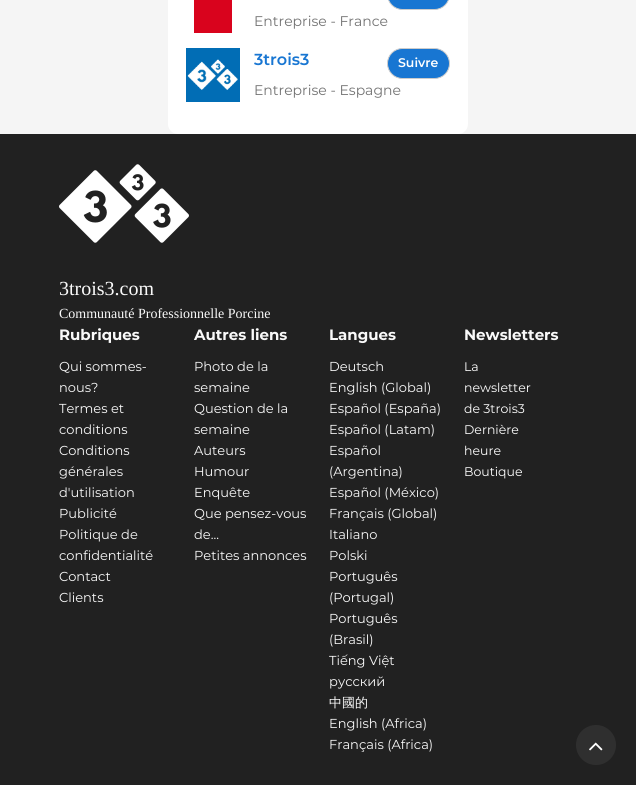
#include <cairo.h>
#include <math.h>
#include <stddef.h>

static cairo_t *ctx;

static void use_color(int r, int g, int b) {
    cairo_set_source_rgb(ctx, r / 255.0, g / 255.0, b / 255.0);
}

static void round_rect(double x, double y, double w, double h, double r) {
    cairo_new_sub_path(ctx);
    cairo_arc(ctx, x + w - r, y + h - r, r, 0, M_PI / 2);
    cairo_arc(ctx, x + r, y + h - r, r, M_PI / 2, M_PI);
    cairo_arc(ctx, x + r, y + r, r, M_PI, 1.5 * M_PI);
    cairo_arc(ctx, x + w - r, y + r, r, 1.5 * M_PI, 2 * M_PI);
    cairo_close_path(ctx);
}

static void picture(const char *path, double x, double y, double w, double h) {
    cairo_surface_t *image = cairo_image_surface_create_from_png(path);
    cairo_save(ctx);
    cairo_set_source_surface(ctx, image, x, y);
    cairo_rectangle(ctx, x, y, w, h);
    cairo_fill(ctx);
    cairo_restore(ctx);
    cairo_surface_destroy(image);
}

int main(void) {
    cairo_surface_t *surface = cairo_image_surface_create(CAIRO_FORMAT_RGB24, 636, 785);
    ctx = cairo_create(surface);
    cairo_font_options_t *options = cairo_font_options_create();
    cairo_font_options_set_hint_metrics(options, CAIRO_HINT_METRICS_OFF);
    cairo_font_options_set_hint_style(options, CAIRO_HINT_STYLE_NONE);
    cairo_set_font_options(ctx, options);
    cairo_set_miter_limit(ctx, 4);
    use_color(245, 245, 245);
    cairo_paint(ctx);
    use_color(255, 255, 255);
    round_rect(168, -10, 300, 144, 10);
    cairo_fill(ctx);
    use_color(217, 3, 29);
    cairo_rectangle(ctx, 194, 0, 38, 33);
    cairo_fill(ctx);
    use_color(24, 118, 210);
    round_rect(387.5, -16.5, 62, 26, 15);
    cairo_fill_preserve(ctx);
    use_color(204, 204, 204);
    cairo_set_line_width(ctx, 1);
    cairo_stroke(ctx);
    cairo_select_font_face(ctx, "Montserrat", CAIRO_FONT_SLANT_NORMAL, CAIRO_FONT_WEIGHT_NORMAL);
    cairo_set_font_size(ctx, 14);
    use_color(115, 115, 115);
    cairo_move_to(ctx, 254, 26);
    cairo_show_text(ctx, "Entreprise - France");
    picture("img1.png", 186, 48, 54, 54);
    cairo_select_font_face(ctx, "Montserrat SemiBold", CAIRO_FONT_SLANT_NORMAL, CAIRO_FONT_WEIGHT_NORMAL);
    cairo_set_font_size(ctx, 16);
    use_color(24, 118, 210);
    cairo_move_to(ctx, 254, 65);
    cairo_show_text(ctx, "3trois3");
    round_rect(387.5, 48.5, 62, 30, 15);
    cairo_fill_preserve(ctx);
    use_color(204, 204, 204);
    cairo_stroke(ctx);
    cairo_set_font_size(ctx, 12.5);
    use_color(255, 255, 255);
    cairo_move_to(ctx, 398, 67);
    cairo_show_text(ctx, "Suivre");
    cairo_select_font_face(ctx, "Montserrat", CAIRO_FONT_SLANT_NORMAL, CAIRO_FONT_WEIGHT_NORMAL);
    cairo_set_font_size(ctx, 14);
    use_color(115, 115, 115);
    cairo_move_to(ctx, 254, 95);
    cairo_show_text(ctx, "Entreprise - Espagne");
    use_color(33, 33, 33);
    cairo_rectangle(ctx, 0, 134, 636, 651);
    cairo_fill(ctx);
    picture("img2.png", 59, 164, 130, 79);
    cairo_select_font_face(ctx, "Liberation Serif", CAIRO_FONT_SLANT_NORMAL, CAIRO_FONT_WEIGHT_NORMAL);
    cairo_set_font_size(ctx, 20);
    use_color(249, 249, 249);
    cairo_move_to(ctx, 59, 295);
    cairo_show_text(ctx, "3trois3.com");
    cairo_set_font_size(ctx, 14);
    cairo_move_to(ctx, 59, 318);
    cairo_show_text(ctx, "Communauté Professionnelle Porcine");
    cairo_select_font_face(ctx, "Montserrat", CAIRO_FONT_SLANT_NORMAL, CAIRO_FONT_WEIGHT_BOLD);
    cairo_set_font_size(ctx, 15);
    cairo_move_to(ctx, 59, 340);
    cairo_show_text(ctx, "Rubriques");
    cairo_select_font_face(ctx, "Montserrat", CAIRO_FONT_SLANT_NORMAL, CAIRO_FONT_WEIGHT_NORMAL);
    cairo_set_font_size(ctx, 13);
    cairo_move_to(ctx, 59, 371);
    cairo_show_text(ctx, "Qui sommes-");
    cairo_move_to(ctx, 59, 392);
    cairo_show_text(ctx, "nous?");
    cairo_move_to(ctx, 59, 413);
    cairo_show_text(ctx, "Termes et");
    cairo_move_to(ctx, 59, 434);
    cairo_show_text(ctx, "conditions");
    cairo_move_to(ctx, 59, 455);
    cairo_show_text(ctx, "Conditions");
    cairo_move_to(ctx, 59, 476);
    cairo_show_text(ctx, "générales");
    cairo_move_to(ctx, 59, 497);
    cairo_show_text(ctx, "d'utilisation");
    cairo_move_to(ctx, 59, 518);
    cairo_show_text(ctx, "Publicité");
    cairo_move_to(ctx, 59, 539);
    cairo_show_text(ctx, "Politique de");
    cairo_move_to(ctx, 59, 560);
    cairo_show_text(ctx, "confidentialité");
    cairo_move_to(ctx, 59, 581);
    cairo_show_text(ctx, "Contact");
    cairo_move_to(ctx, 59, 602);
    cairo_show_text(ctx, "Clients");
    cairo_select_font_face(ctx, "Montserrat", CAIRO_FONT_SLANT_NORMAL, CAIRO_FONT_WEIGHT_BOLD);
    cairo_set_font_size(ctx, 15);
    cairo_move_to(ctx, 194, 340);
    cairo_show_text(ctx, "Autres liens");
    cairo_select_font_face(ctx, "Montserrat", CAIRO_FONT_SLANT_NORMAL, CAIRO_FONT_WEIGHT_NORMAL);
    cairo_set_font_size(ctx, 13);
    cairo_move_to(ctx, 194, 371);
    cairo_show_text(ctx, "Photo de la");
    cairo_move_to(ctx, 194, 392);
    cairo_show_text(ctx, "semaine");
    cairo_move_to(ctx, 194, 413);
    cairo_show_text(ctx, "Question de la");
    cairo_move_to(ctx, 194, 434);
    cairo_show_text(ctx, "semaine");
    cairo_move_to(ctx, 194, 455);
    cairo_show_text(ctx, "Auteurs");
    cairo_move_to(ctx, 194, 476);
    cairo_show_text(ctx, "Humour");
    cairo_move_to(ctx, 194, 497);
    cairo_show_text(ctx, "Enquête");
    cairo_move_to(ctx, 194, 518);
    cairo_show_text(ctx, "Que pensez-vous");
    cairo_move_to(ctx, 194, 539);
    cairo_show_text(ctx, "de...");
    cairo_move_to(ctx, 194, 560);
    cairo_show_text(ctx, "Petites annonces");
    cairo_select_font_face(ctx, "Montserrat", CAIRO_FONT_SLANT_NORMAL, CAIRO_FONT_WEIGHT_BOLD);
    cairo_set_font_size(ctx, 15);
    cairo_move_to(ctx, 329, 340);
    cairo_show_text(ctx, "Langues");
    cairo_select_font_face(ctx, "Montserrat", CAIRO_FONT_SLANT_NORMAL, CAIRO_FONT_WEIGHT_NORMAL);
    cairo_set_font_size(ctx, 13);
    cairo_move_to(ctx, 329, 371);
    cairo_show_text(ctx, "Deutsch");
    cairo_move_to(ctx, 329, 392);
    cairo_show_text(ctx, "English (Global)");
    cairo_move_to(ctx, 329, 413);
    cairo_show_text(ctx, "Español (España)");
    cairo_move_to(ctx, 329, 434);
    cairo_show_text(ctx, "Español (Latam)");
    cairo_move_to(ctx, 329, 455);
    cairo_show_text(ctx, "Español");
    cairo_move_to(ctx, 329, 476);
    cairo_show_text(ctx, "(Argentina)");
    cairo_move_to(ctx, 329, 497);
    cairo_show_text(ctx, "Español (México)");
    cairo_move_to(ctx, 329, 518);
    cairo_show_text(ctx, "Français (Global)");
    cairo_move_to(ctx, 329, 539);
    cairo_show_text(ctx, "Italiano");
    cairo_move_to(ctx, 329, 560);
    cairo_show_text(ctx, "Polski");
    cairo_move_to(ctx, 329, 581);
    cairo_show_text(ctx, "Português");
    cairo_move_to(ctx, 329, 602);
    cairo_show_text(ctx, "(Portugal)");
    cairo_move_to(ctx, 329, 623);
    cairo_show_text(ctx, "Português");
    cairo_move_to(ctx, 329, 644);
    cairo_show_text(ctx, "(Brasil)");
    cairo_move_to(ctx, 329, 665);
    cairo_show_text(ctx, "Tiếng Việt");
    cairo_move_to(ctx, 329, 686);
    cairo_show_text(ctx, "русский");
    cairo_select_font_face(ctx, "WenQuanYi Zen Hei Medium", CAIRO_FONT_SLANT_NORMAL, CAIRO_FONT_WEIGHT_NORMAL);
    cairo_move_to(ctx, 329, 707);
    cairo_show_text(ctx, "中國的");
    cairo_select_font_face(ctx, "Montserrat", CAIRO_FONT_SLANT_NORMAL, CAIRO_FONT_WEIGHT_NORMAL);
    cairo_move_to(ctx, 329, 728);
    cairo_show_text(ctx, "English (Africa)");
    cairo_move_to(ctx, 329, 749);
    cairo_show_text(ctx, "Français (Africa)");
    cairo_select_font_face(ctx, "Montserrat", CAIRO_FONT_SLANT_NORMAL, CAIRO_FONT_WEIGHT_BOLD);
    cairo_set_font_size(ctx, 15);
    cairo_move_to(ctx, 464, 340);
    cairo_show_text(ctx, "Newsletters");
    cairo_select_font_face(ctx, "Montserrat", CAIRO_FONT_SLANT_NORMAL, CAIRO_FONT_WEIGHT_NORMAL);
    cairo_set_font_size(ctx, 12.5);
    use_color(255, 255, 255);
    cairo_move_to(ctx, 464, 371);
    cairo_show_text(ctx, "La");
    cairo_move_to(ctx, 464, 392);
    cairo_show_text(ctx, "newsletter");
    cairo_move_to(ctx, 464, 413);
    cairo_show_text(ctx, "de 3trois3");
    cairo_move_to(ctx, 464, 434);
    cairo_show_text(ctx, "Dernière");
    cairo_move_to(ctx, 464, 455);
    cairo_show_text(ctx, "heure");
    cairo_move_to(ctx, 464, 476);
    cairo_show_text(ctx, "Boutique");
    use_color(47, 47, 47);
    cairo_new_path(ctx);
    cairo_arc(ctx, 596, 745, 20, 0, 2 * M_PI);
    cairo_fill(ctx);
    picture("img3.png", 589, 742, 14, 9);
    cairo_surface_write_to_png(surface, "result.png");
    cairo_font_options_destroy(options);
    cairo_destroy(ctx);
    cairo_surface_destroy(surface);
    return 0;
}
